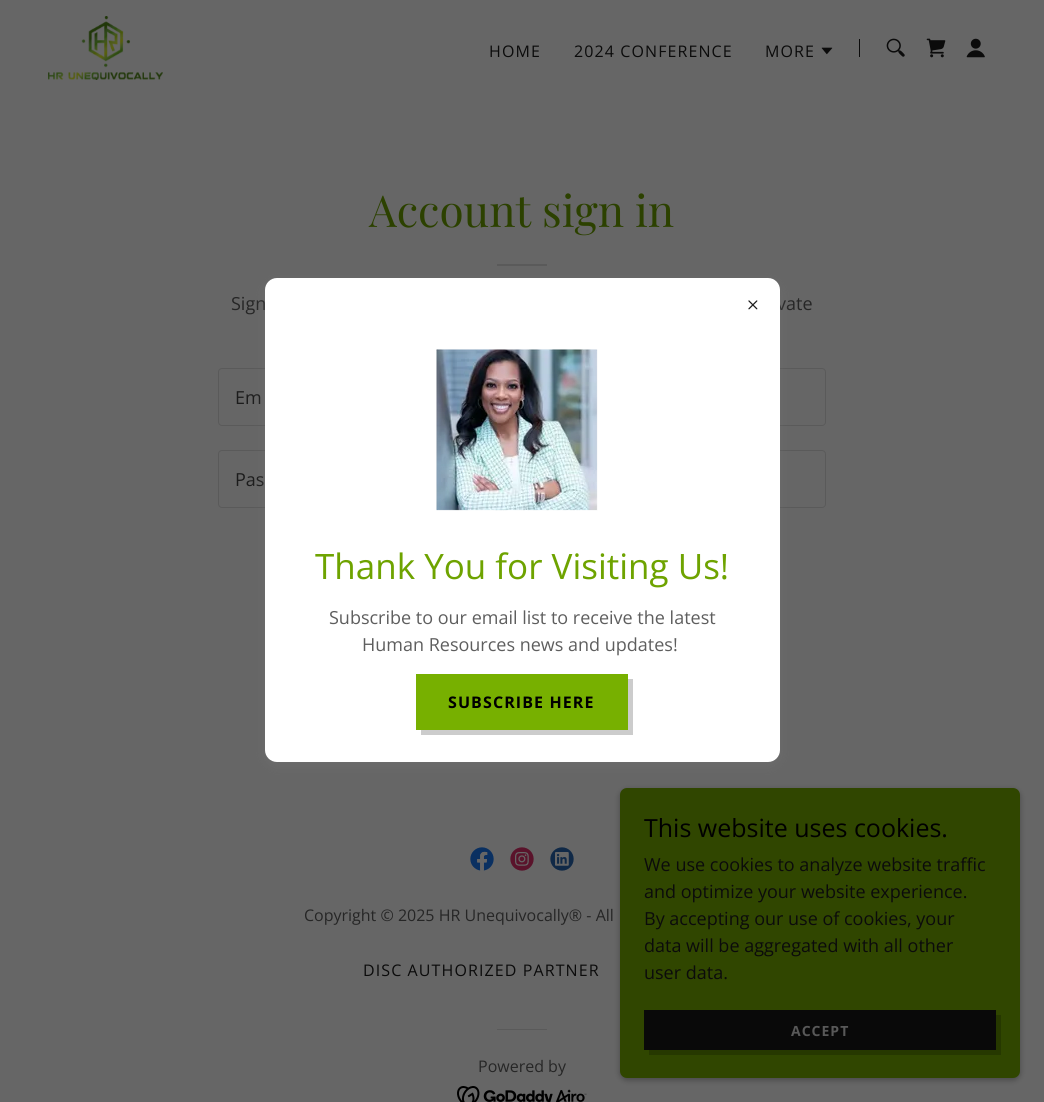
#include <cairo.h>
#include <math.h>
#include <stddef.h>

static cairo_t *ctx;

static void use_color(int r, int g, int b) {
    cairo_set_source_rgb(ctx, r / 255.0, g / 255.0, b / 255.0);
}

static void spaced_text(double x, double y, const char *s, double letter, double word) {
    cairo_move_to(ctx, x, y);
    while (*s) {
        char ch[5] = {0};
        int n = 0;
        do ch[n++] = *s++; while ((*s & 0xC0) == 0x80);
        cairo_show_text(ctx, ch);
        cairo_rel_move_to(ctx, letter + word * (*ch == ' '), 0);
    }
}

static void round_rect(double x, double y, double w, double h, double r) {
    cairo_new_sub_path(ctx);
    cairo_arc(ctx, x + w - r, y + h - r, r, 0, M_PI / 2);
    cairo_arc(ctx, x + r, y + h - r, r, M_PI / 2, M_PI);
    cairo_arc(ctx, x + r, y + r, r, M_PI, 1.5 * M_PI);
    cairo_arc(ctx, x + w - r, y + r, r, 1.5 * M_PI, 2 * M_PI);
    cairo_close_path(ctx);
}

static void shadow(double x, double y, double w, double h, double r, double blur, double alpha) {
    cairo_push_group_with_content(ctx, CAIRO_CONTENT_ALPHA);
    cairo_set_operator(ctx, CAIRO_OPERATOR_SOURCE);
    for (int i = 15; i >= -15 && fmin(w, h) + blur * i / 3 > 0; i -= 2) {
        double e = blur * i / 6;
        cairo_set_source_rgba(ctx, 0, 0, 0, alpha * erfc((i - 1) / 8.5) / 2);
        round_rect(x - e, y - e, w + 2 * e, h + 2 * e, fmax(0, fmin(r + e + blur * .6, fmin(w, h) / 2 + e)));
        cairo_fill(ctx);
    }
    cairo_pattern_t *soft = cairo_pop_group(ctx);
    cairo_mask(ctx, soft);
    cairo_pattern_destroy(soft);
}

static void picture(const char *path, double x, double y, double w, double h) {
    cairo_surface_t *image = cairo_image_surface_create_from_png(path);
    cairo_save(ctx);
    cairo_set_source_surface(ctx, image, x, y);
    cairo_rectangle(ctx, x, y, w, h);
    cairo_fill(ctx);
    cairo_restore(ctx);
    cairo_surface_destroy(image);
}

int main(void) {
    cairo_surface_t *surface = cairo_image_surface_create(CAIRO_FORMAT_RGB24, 1044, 1102);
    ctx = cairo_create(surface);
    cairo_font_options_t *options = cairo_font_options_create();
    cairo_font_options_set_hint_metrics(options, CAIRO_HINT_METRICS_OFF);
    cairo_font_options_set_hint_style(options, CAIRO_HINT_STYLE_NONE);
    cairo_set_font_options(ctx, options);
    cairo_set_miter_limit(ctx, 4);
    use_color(102, 102, 102);
    cairo_paint(ctx);
    picture("img1.png", 48, 16, 115, 64);
    cairo_select_font_face(ctx, "Open Sans", CAIRO_FONT_SLANT_NORMAL, CAIRO_FONT_WEIGHT_NORMAL);
    cairo_set_font_size(ctx, 16);
    use_color(11, 11, 11);
    spaced_text(489, 57, "HOME", 1.1, 0);
    spaced_text(574, 57, "2024 CONFERENCE", 1.1, 0);
    spaced_text(765, 57, "MORE", 1.1, 0);
    picture("img2.png", 821, 47, 12, 8);
    cairo_rectangle(ctx, 859, 39, 1, 18);
    cairo_fill(ctx);
    picture("img3.png", 886, 38, 19, 19);
    picture("img4.png", 926, 38, 20, 20);
    picture("img5.png", 966, 38, 19, 20);
    cairo_select_font_face(ctx, "Playfair Display", CAIRO_FONT_SLANT_NORMAL, CAIRO_FONT_WEIGHT_NORMAL);
    cairo_set_font_size(ctx, 44);
    use_color(44, 65, 0);
    cairo_move_to(ctx, 369, 227);
    cairo_show_text(ctx, "Account sign in");
    use_color(90, 90, 90);
    cairo_rectangle(ctx, 497, 264, 50, 2);
    cairo_fill(ctx);
    cairo_select_font_face(ctx, "Open Sans", CAIRO_FONT_SLANT_NORMAL, CAIRO_FONT_WEIGHT_NORMAL);
    cairo_set_font_size(ctx, 18);
    use_color(38, 38, 38);
    cairo_move_to(ctx, 231, 310);
    cairo_show_text(ctx, "Sign");
    cairo_move_to(ctx, 777, 310);
    cairo_show_text(ctx, "vate");
    round_rect(218.5, 368.5, 607, 57, 3.5);
    use_color(90, 90, 90);
    cairo_set_line_width(ctx, 1);
    cairo_stroke(ctx);
    use_color(28, 28, 28);
    cairo_move_to(ctx, 235, 404);
    cairo_show_text(ctx, "Em");
    round_rect(218.5, 450.5, 607, 57, 3.5);
    use_color(90, 90, 90);
    cairo_stroke(ctx);
    use_color(28, 28, 28);
    cairo_move_to(ctx, 235, 486);
    cairo_show_text(ctx, "Pas");
    use_color(117, 117, 117);
    shadow(265, 282, 515, 484, 12, 6, 0.4);
    use_color(255, 255, 255);
    round_rect(265, 278, 515, 484, 12);
    cairo_fill(ctx);
    picture("img6.png", 748, 300, 10, 10);
    picture("img7.png", 436, 349, 162, 162);
    cairo_set_font_size(ctx, 35);
    use_color(110, 163, 0);
    cairo_move_to(ctx, 315, 579);
    cairo_show_text(ctx, "Thank You for Visiting Us!");
    cairo_set_font_size(ctx, 18);
    use_color(94, 94, 94);
    cairo_move_to(ctx, 329, 624);
    cairo_show_text(ctx, "Subscribe to our email list to receive the latest");
    cairo_move_to(ctx, 362, 651);
    cairo_show_text(ctx, "Human Resources news and updates!");
    use_color(119, 176, 0);
    cairo_rectangle(ctx, 416, 674, 212, 56);
    cairo_fill(ctx);
    use_color(204, 204, 204);
    cairo_new_path(ctx);
    cairo_move_to(ctx, 421, 730);
    cairo_line_to(ctx, 421, 735);
    cairo_line_to(ctx, 633, 735);
    cairo_line_to(ctx, 633, 679);
    cairo_line_to(ctx, 628, 679);
    cairo_line_to(ctx, 628, 730);
    cairo_close_path(ctx);
    cairo_fill(ctx);
    cairo_select_font_face(ctx, "Open Sans", CAIRO_FONT_SLANT_NORMAL, CAIRO_FONT_WEIGHT_BOLD);
    cairo_set_font_size(ctx, 16);
    use_color(0, 0, 0);
    spaced_text(448, 708, "SUBSCRIBE HERE", 1.1, 0);
    picture("img8.png", 470, 847, 24, 24);
    picture("img9.png", 510, 847, 24, 24);
    picture("img10.png", 550, 847, 24, 24);
    cairo_select_font_face(ctx, "Open Sans", CAIRO_FONT_SLANT_NORMAL, CAIRO_FONT_WEIGHT_NORMAL);
    use_color(38, 38, 38);
    cairo_move_to(ctx, 304, 921);
    cairo_show_text(ctx, "Copyright © 2025 HR Unequivocally® - All");
    use_color(11, 11, 11);
    spaced_text(363, 976, "DISC AUTHORIZED PARTNER", 1.1, 0);
    use_color(90, 90, 90);
    cairo_rectangle(ctx, 497, 1029, 50, 1);
    cairo_fill(ctx);
    use_color(38, 38, 38);
    cairo_move_to(ctx, 478, 1072);
    cairo_show_text(ctx, "Powered by");
    picture("img11.png", 457, 1086, 130, 16);
    use_color(0, 0, 0);
    shadow(620, 790, 400, 290, 7, 3, 0.3);
    use_color(48, 70, 0);
    round_rect(620, 788, 400, 290, 7);
    cairo_fill(ctx);
    cairo_set_font_size(ctx, 25);
    use_color(0, 0, 0);
    cairo_move_to(ctx, 644, 837);
    cairo_show_text(ctx, "This website uses cookies.");
    cairo_set_font_size(ctx, 18);
    use_color(11, 11, 11);
    cairo_move_to(ctx, 644, 871);
    cairo_show_text(ctx, "We use cookies to analyze website traffic");
    cairo_move_to(ctx, 644, 898);
    cairo_show_text(ctx, "and optimize your website experience.");
    cairo_move_to(ctx, 644, 925);
    cairo_show_text(ctx, "By accepting our use of cookies, your");
    cairo_move_to(ctx, 644, 952);
    cairo_show_text(ctx, "data will be aggregated with all other");
    cairo_move_to(ctx, 644, 979);
    cairo_show_text(ctx, "user data.");
    use_color(9, 9, 9);
    cairo_rectangle(ctx, 644, 1010, 352, 40);
    cairo_fill(ctx);
    use_color(38, 56, 0);
    cairo_new_path(ctx);
    cairo_move_to(ctx, 649, 1050);
    cairo_line_to(ctx, 649, 1055);
    cairo_line_to(ctx, 1001, 1055);
    cairo_line_to(ctx, 1001, 1015);
    cairo_line_to(ctx, 996, 1015);
    cairo_line_to(ctx, 996, 1050);
    cairo_close_path(ctx);
    cairo_fill(ctx);
    cairo_select_font_face(ctx, "Open Sans", CAIRO_FONT_SLANT_NORMAL, CAIRO_FONT_WEIGHT_BOLD);
    cairo_set_font_size(ctx, 14);
    use_color(88, 88, 88);
    spaced_text(791, 1036, "ACCEPT", 1, 0);
    cairo_surface_write_to_png(surface, "result.png");
    cairo_font_options_destroy(options);
    cairo_destroy(ctx);
    cairo_surface_destroy(surface);
    return 0;
}
